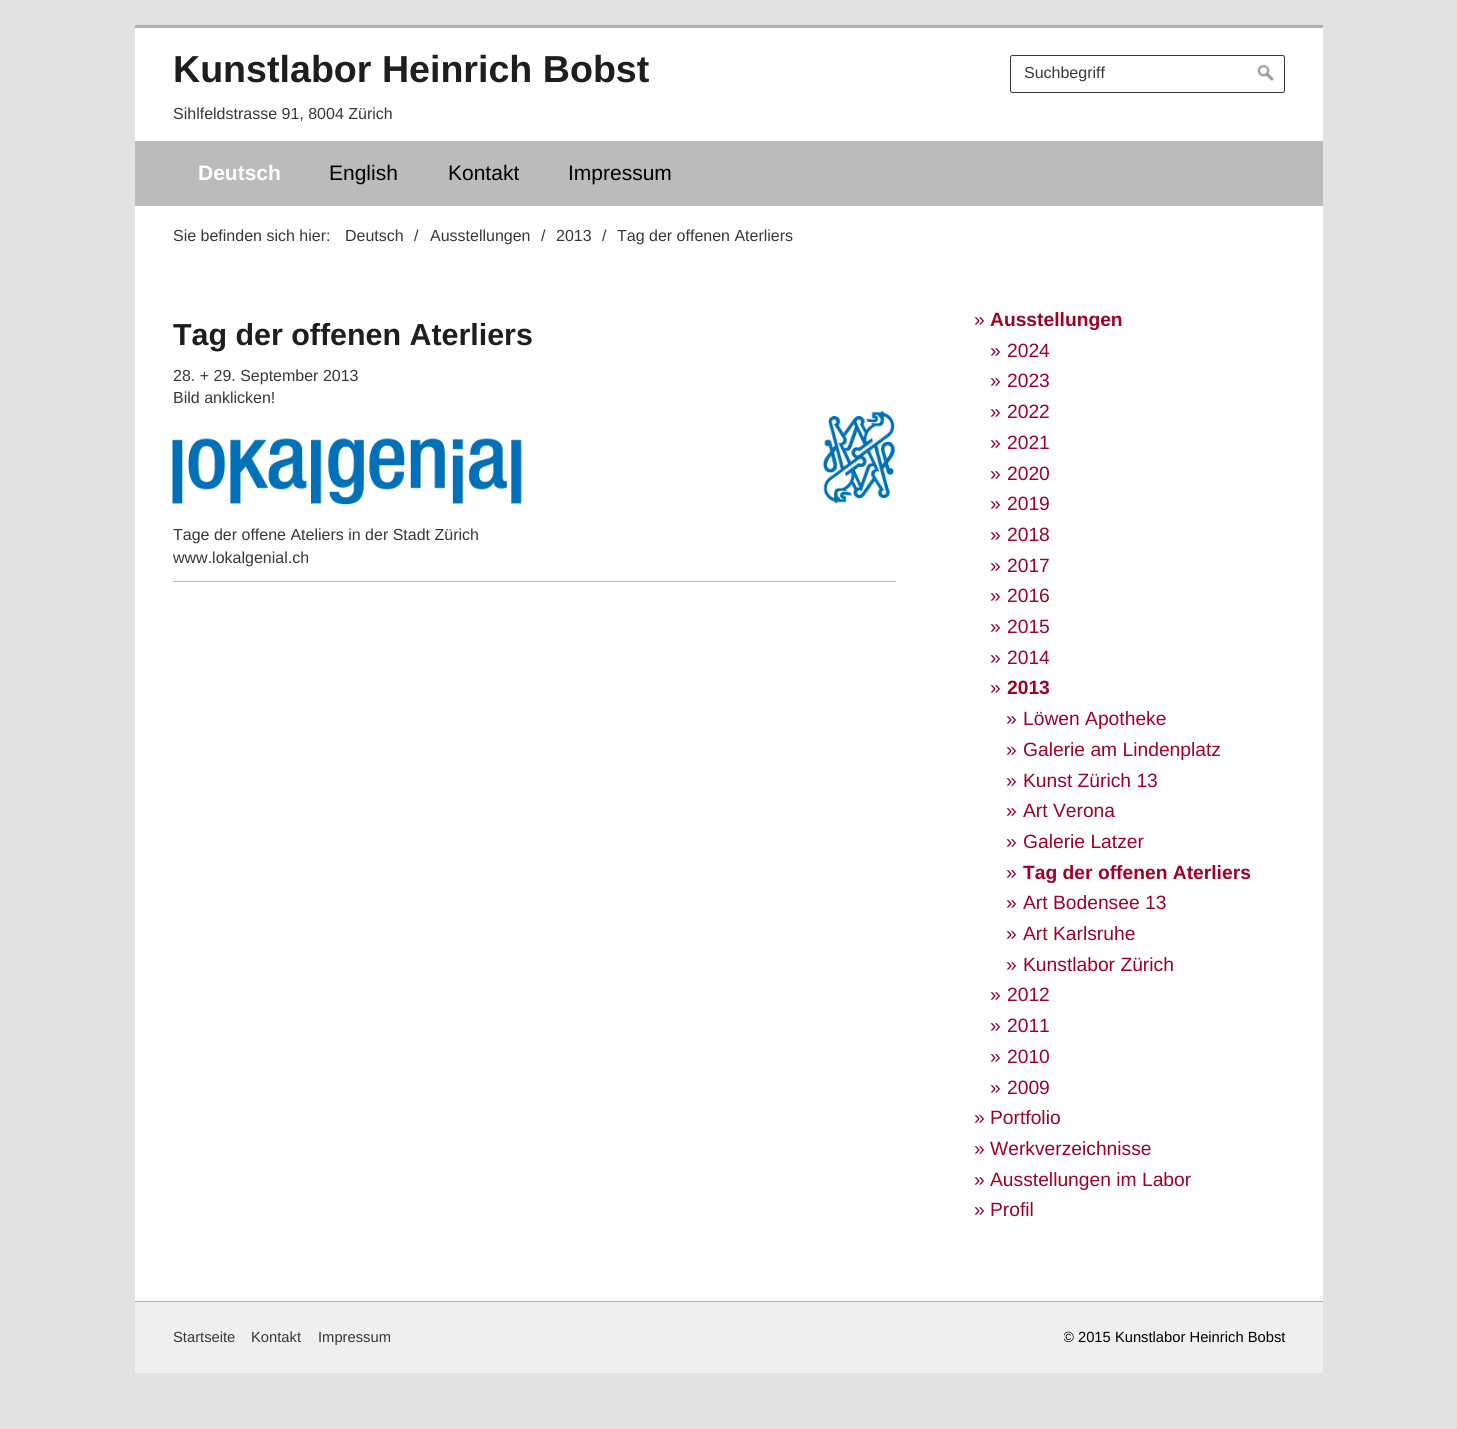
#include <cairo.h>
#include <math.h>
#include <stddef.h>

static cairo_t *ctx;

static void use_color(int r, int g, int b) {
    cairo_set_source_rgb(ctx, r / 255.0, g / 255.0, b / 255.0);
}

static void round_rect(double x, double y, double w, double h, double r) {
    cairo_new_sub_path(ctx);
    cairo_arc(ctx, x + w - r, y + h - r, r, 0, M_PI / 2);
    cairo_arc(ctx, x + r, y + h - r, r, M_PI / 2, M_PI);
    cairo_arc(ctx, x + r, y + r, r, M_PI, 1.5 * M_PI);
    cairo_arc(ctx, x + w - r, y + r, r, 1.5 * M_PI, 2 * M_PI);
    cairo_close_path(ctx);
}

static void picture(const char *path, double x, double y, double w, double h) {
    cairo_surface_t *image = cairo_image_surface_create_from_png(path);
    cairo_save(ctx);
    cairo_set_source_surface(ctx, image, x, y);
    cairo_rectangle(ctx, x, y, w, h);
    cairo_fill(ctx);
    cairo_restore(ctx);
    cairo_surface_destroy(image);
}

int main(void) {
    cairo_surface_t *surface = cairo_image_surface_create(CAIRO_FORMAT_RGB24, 1457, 1429);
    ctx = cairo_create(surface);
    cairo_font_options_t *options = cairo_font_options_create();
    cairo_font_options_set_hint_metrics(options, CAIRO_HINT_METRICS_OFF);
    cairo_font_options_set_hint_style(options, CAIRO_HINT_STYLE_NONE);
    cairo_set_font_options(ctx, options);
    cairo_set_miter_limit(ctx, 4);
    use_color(226, 226, 226);
    cairo_paint(ctx);
    use_color(175, 175, 175);
    cairo_rectangle(ctx, 135, 25, 1188, 3);
    cairo_fill(ctx);
    use_color(255, 255, 255);
    cairo_rectangle(ctx, 135, 28, 1188, 113);
    cairo_fill(ctx);
    cairo_select_font_face(ctx, "Liberation Sans", CAIRO_FONT_SLANT_NORMAL, CAIRO_FONT_WEIGHT_BOLD);
    cairo_set_font_size(ctx, 37.6);
    use_color(30, 30, 30);
    cairo_move_to(ctx, 173, 82);
    cairo_show_text(ctx, "Kunstlabor Heinrich Bobst");
    cairo_select_font_face(ctx, "Liberation Sans", CAIRO_FONT_SLANT_NORMAL, CAIRO_FONT_WEIGHT_NORMAL);
    cairo_set_font_size(ctx, 16);
    use_color(55, 55, 55);
    cairo_move_to(ctx, 173, 119);
    cairo_show_text(ctx, "Sihlfeldstrasse 91, 8004 Zürich");
    round_rect(1010.5, 55.5, 274, 37, 2);
    cairo_set_line_width(ctx, 1);
    cairo_stroke(ctx);
    cairo_move_to(ctx, 1024, 78);
    cairo_show_text(ctx, "Suchbegriff");
    picture("img1.png", 1257, 64, 17, 18);
    use_color(187, 187, 187);
    cairo_rectangle(ctx, 135, 141, 1188, 65);
    cairo_fill(ctx);
    cairo_select_font_face(ctx, "Liberation Sans", CAIRO_FONT_SLANT_NORMAL, CAIRO_FONT_WEIGHT_BOLD);
    cairo_set_font_size(ctx, 21);
    use_color(255, 255, 255);
    cairo_move_to(ctx, 198, 180);
    cairo_show_text(ctx, "Deutsch");
    cairo_select_font_face(ctx, "Liberation Sans", CAIRO_FONT_SLANT_NORMAL, CAIRO_FONT_WEIGHT_NORMAL);
    use_color(0, 0, 0);
    cairo_move_to(ctx, 329, 180);
    cairo_show_text(ctx, "English");
    cairo_move_to(ctx, 448, 180);
    cairo_show_text(ctx, "Kontakt");
    cairo_move_to(ctx, 568, 180);
    cairo_show_text(ctx, "Impressum");
    use_color(255, 255, 255);
    cairo_rectangle(ctx, 135, 206, 1188, 1095);
    cairo_fill(ctx);
    cairo_set_font_size(ctx, 16);
    use_color(55, 55, 55);
    cairo_move_to(ctx, 173, 241);
    cairo_show_text(ctx, "Sie befinden sich hier:");
    cairo_move_to(ctx, 345, 241);
    cairo_show_text(ctx, "Deutsch");
    cairo_move_to(ctx, 414, 241);
    cairo_show_text(ctx, "/");
    cairo_move_to(ctx, 430, 241);
    cairo_show_text(ctx, "Ausstellungen");
    cairo_move_to(ctx, 541, 241);
    cairo_show_text(ctx, "/");
    cairo_move_to(ctx, 556, 241);
    cairo_show_text(ctx, "2013");
    cairo_move_to(ctx, 602, 241);
    cairo_show_text(ctx, "/");
    cairo_move_to(ctx, 617, 241);
    cairo_show_text(ctx, "Tag der offenen Aterliers");
    use_color(183, 183, 183);
    cairo_rectangle(ctx, 173, 581, 723, 1);
    cairo_fill(ctx);
    cairo_select_font_face(ctx, "Liberation Sans", CAIRO_FONT_SLANT_NORMAL, CAIRO_FONT_WEIGHT_BOLD);
    cairo_set_font_size(ctx, 30.4);
    use_color(30, 30, 30);
    cairo_move_to(ctx, 173, 345);
    cairo_show_text(ctx, "Tag der offenen Aterliers");
    cairo_select_font_face(ctx, "Liberation Sans", CAIRO_FONT_SLANT_NORMAL, CAIRO_FONT_WEIGHT_NORMAL);
    cairo_set_font_size(ctx, 16);
    use_color(55, 55, 55);
    cairo_move_to(ctx, 173, 381);
    cairo_show_text(ctx, "28. + 29. September 2013");
    cairo_move_to(ctx, 173, 403);
    cairo_show_text(ctx, "Bild anklicken!");
    picture("img2.png", 172, 410, 723, 95);
    cairo_move_to(ctx, 173, 540);
    cairo_show_text(ctx, "Tage der offene Ateliers in der Stadt Zürich");
    cairo_move_to(ctx, 173, 563);
    cairo_show_text(ctx, "www.lokalgenial.ch");
    cairo_set_font_size(ctx, 19.25);
    use_color(158, 0, 40);
    cairo_move_to(ctx, 974, 326);
    cairo_show_text(ctx, "»");
    cairo_select_font_face(ctx, "Liberation Sans", CAIRO_FONT_SLANT_NORMAL, CAIRO_FONT_WEIGHT_BOLD);
    cairo_move_to(ctx, 990, 326);
    cairo_show_text(ctx, "Ausstellungen");
    cairo_select_font_face(ctx, "Liberation Sans", CAIRO_FONT_SLANT_NORMAL, CAIRO_FONT_WEIGHT_NORMAL);
    cairo_move_to(ctx, 990, 357);
    cairo_show_text(ctx, "»");
    cairo_move_to(ctx, 1007, 357);
    cairo_show_text(ctx, "2024");
    cairo_move_to(ctx, 990, 387);
    cairo_show_text(ctx, "»");
    cairo_move_to(ctx, 1007, 387);
    cairo_show_text(ctx, "2023");
    cairo_move_to(ctx, 990, 418);
    cairo_show_text(ctx, "»");
    cairo_move_to(ctx, 1007, 418);
    cairo_show_text(ctx, "2022");
    cairo_move_to(ctx, 990, 449);
    cairo_show_text(ctx, "»");
    cairo_move_to(ctx, 1007, 449);
    cairo_show_text(ctx, "2021");
    cairo_move_to(ctx, 990, 480);
    cairo_show_text(ctx, "»");
    cairo_move_to(ctx, 1007, 480);
    cairo_show_text(ctx, "2020");
    cairo_move_to(ctx, 990, 510);
    cairo_show_text(ctx, "»");
    cairo_move_to(ctx, 1007, 510);
    cairo_show_text(ctx, "2019");
    cairo_move_to(ctx, 990, 541);
    cairo_show_text(ctx, "»");
    cairo_move_to(ctx, 1007, 541);
    cairo_show_text(ctx, "2018");
    cairo_move_to(ctx, 990, 572);
    cairo_show_text(ctx, "»");
    cairo_move_to(ctx, 1007, 572);
    cairo_show_text(ctx, "2017");
    cairo_move_to(ctx, 990, 602);
    cairo_show_text(ctx, "»");
    cairo_move_to(ctx, 1007, 602);
    cairo_show_text(ctx, "2016");
    cairo_move_to(ctx, 990, 633);
    cairo_show_text(ctx, "»");
    cairo_move_to(ctx, 1007, 633);
    cairo_show_text(ctx, "2015");
    cairo_move_to(ctx, 990, 664);
    cairo_show_text(ctx, "»");
    cairo_move_to(ctx, 1007, 664);
    cairo_show_text(ctx, "2014");
    cairo_move_to(ctx, 990, 694);
    cairo_show_text(ctx, "»");
    cairo_select_font_face(ctx, "Liberation Sans", CAIRO_FONT_SLANT_NORMAL, CAIRO_FONT_WEIGHT_BOLD);
    cairo_move_to(ctx, 1007, 694);
    cairo_show_text(ctx, "2013");
    cairo_select_font_face(ctx, "Liberation Sans", CAIRO_FONT_SLANT_NORMAL, CAIRO_FONT_WEIGHT_NORMAL);
    cairo_move_to(ctx, 1006, 725);
    cairo_show_text(ctx, "»");
    cairo_move_to(ctx, 1023, 725);
    cairo_show_text(ctx, "Löwen Apotheke");
    cairo_move_to(ctx, 1006, 756);
    cairo_show_text(ctx, "»");
    cairo_move_to(ctx, 1023, 756);
    cairo_show_text(ctx, "Galerie am Lindenplatz");
    cairo_move_to(ctx, 1006, 787);
    cairo_show_text(ctx, "»");
    cairo_move_to(ctx, 1023, 787);
    cairo_show_text(ctx, "Kunst Zürich 13");
    cairo_move_to(ctx, 1006, 817);
    cairo_show_text(ctx, "»");
    cairo_move_to(ctx, 1023, 817);
    cairo_show_text(ctx, "Art Verona");
    cairo_move_to(ctx, 1006, 848);
    cairo_show_text(ctx, "»");
    cairo_move_to(ctx, 1023, 848);
    cairo_show_text(ctx, "Galerie Latzer");
    cairo_move_to(ctx, 1006, 879);
    cairo_show_text(ctx, "»");
    cairo_select_font_face(ctx, "Liberation Sans", CAIRO_FONT_SLANT_NORMAL, CAIRO_FONT_WEIGHT_BOLD);
    cairo_move_to(ctx, 1023, 879);
    cairo_show_text(ctx, "Tag der offenen Aterliers");
    cairo_select_font_face(ctx, "Liberation Sans", CAIRO_FONT_SLANT_NORMAL, CAIRO_FONT_WEIGHT_NORMAL);
    cairo_move_to(ctx, 1006, 909);
    cairo_show_text(ctx, "»");
    cairo_move_to(ctx, 1023, 909);
    cairo_show_text(ctx, "Art Bodensee 13");
    cairo_move_to(ctx, 1006, 940);
    cairo_show_text(ctx, "»");
    cairo_move_to(ctx, 1023, 940);
    cairo_show_text(ctx, "Art Karlsruhe");
    cairo_move_to(ctx, 1006, 971);
    cairo_show_text(ctx, "»");
    cairo_move_to(ctx, 1023, 971);
    cairo_show_text(ctx, "Kunstlabor Zürich");
    cairo_move_to(ctx, 990, 1001);
    cairo_show_text(ctx, "»");
    cairo_move_to(ctx, 1007, 1001);
    cairo_show_text(ctx, "2012");
    cairo_move_to(ctx, 990, 1032);
    cairo_show_text(ctx, "»");
    cairo_move_to(ctx, 1007, 1032);
    cairo_show_text(ctx, "2011");
    cairo_move_to(ctx, 990, 1063);
    cairo_show_text(ctx, "»");
    cairo_move_to(ctx, 1007, 1063);
    cairo_show_text(ctx, "2010");
    cairo_move_to(ctx, 990, 1094);
    cairo_show_text(ctx, "»");
    cairo_move_to(ctx, 1007, 1094);
    cairo_show_text(ctx, "2009");
    cairo_move_to(ctx, 974, 1124);
    cairo_show_text(ctx, "»");
    cairo_move_to(ctx, 990, 1124);
    cairo_show_text(ctx, "Portfolio");
    cairo_move_to(ctx, 974, 1155);
    cairo_show_text(ctx, "»");
    cairo_move_to(ctx, 990, 1155);
    cairo_show_text(ctx, "Werkverzeichnisse");
    cairo_move_to(ctx, 974, 1186);
    cairo_show_text(ctx, "»");
    cairo_move_to(ctx, 990, 1186);
    cairo_show_text(ctx, "Ausstellungen im Labor");
    cairo_move_to(ctx, 974, 1216);
    cairo_show_text(ctx, "»");
    cairo_move_to(ctx, 990, 1216);
    cairo_show_text(ctx, "Profil");
    use_color(239, 239, 239);
    cairo_rectangle(ctx, 135, 1302, 1188, 71);
    cairo_fill(ctx);
    use_color(175, 175, 175);
    cairo_rectangle(ctx, 135, 1301, 1188, 1);
    cairo_fill(ctx);
    cairo_set_font_size(ctx, 14.75);
    use_color(55, 55, 55);
    cairo_move_to(ctx, 173, 1342);
    cairo_show_text(ctx, "Startseite");
    cairo_move_to(ctx, 251, 1342);
    cairo_show_text(ctx, "Kontakt");
    cairo_move_to(ctx, 318, 1342);
    cairo_show_text(ctx, "Impressum");
    cairo_save(ctx);
    cairo_rectangle(ctx, 1064, 1328, 221, 20);
    cairo_clip(ctx);
    use_color(0, 0, 0);
    cairo_move_to(ctx, 1063, 1342);
    cairo_show_text(ctx, "© 2015 Kunstlabor Heinrich Bobst");
    cairo_restore(ctx);
    cairo_surface_write_to_png(surface, "result.png");
    cairo_font_options_destroy(options);
    cairo_destroy(ctx);
    cairo_surface_destroy(surface);
    return 0;
}
